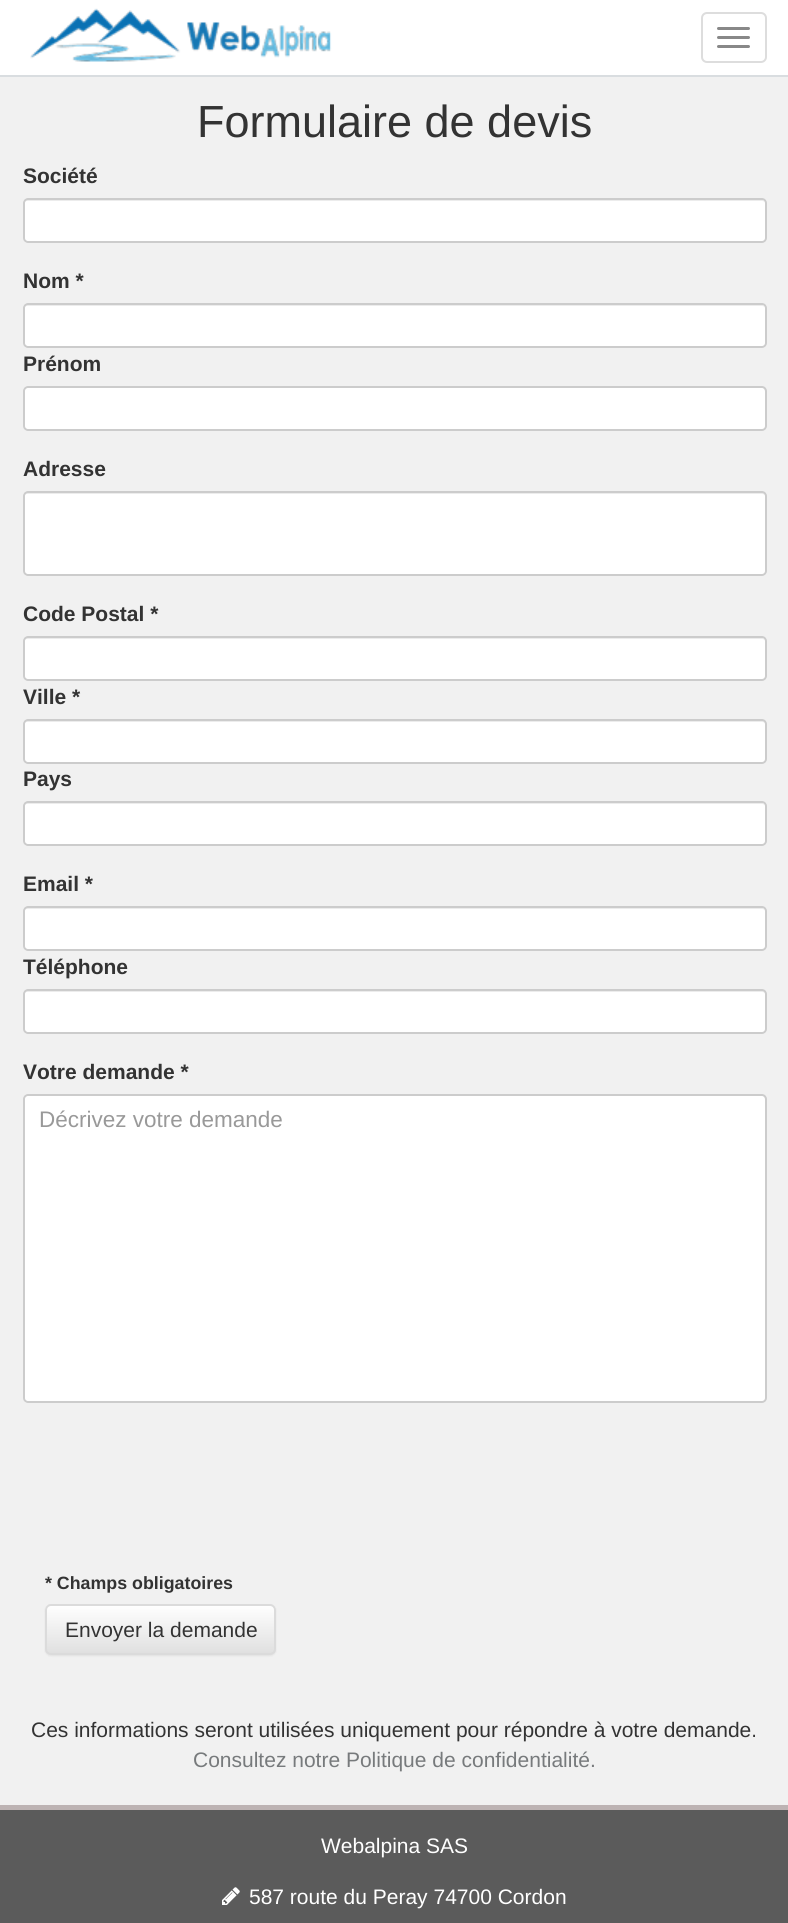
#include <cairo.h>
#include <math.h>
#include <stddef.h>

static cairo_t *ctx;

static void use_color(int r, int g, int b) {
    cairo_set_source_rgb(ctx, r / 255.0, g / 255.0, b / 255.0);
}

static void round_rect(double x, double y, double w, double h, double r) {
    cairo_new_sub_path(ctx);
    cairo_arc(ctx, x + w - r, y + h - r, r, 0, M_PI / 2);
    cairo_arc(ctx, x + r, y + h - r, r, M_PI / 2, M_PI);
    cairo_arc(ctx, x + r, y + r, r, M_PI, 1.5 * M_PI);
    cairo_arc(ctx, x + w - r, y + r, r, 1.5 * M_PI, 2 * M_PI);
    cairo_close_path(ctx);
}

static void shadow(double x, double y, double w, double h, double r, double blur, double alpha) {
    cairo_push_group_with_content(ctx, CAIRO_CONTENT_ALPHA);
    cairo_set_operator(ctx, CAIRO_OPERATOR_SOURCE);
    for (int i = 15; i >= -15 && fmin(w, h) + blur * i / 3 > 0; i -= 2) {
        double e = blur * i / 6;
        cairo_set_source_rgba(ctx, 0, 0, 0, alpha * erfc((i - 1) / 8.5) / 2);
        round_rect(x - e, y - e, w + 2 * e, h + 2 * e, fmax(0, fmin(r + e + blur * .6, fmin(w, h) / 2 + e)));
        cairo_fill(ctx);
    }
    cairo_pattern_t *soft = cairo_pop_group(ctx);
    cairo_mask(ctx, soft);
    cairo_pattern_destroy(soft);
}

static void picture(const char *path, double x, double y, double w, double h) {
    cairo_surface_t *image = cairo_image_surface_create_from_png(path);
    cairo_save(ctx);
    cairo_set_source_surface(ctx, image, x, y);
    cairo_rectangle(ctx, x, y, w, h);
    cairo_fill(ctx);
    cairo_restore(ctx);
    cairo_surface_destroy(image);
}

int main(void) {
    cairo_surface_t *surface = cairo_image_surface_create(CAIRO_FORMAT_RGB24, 788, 1923);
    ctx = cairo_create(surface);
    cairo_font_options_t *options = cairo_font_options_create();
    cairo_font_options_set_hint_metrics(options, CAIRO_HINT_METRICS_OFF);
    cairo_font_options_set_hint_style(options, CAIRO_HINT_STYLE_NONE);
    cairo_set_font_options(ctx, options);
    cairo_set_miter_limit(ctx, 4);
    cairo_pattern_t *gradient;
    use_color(241, 241, 241);
    cairo_paint(ctx);
    use_color(255, 255, 255);
    cairo_rectangle(ctx, 0, 0, 788, 75);
    cairo_fill(ctx);
    use_color(217, 221, 224);
    cairo_rectangle(ctx, 0, 75, 788, 2);
    cairo_fill(ctx);
    picture("img1.png", 30, 8, 302, 54);
    round_rect(702, 13, 64, 49, 5);
    use_color(221, 221, 221);
    cairo_stroke(ctx);
    use_color(136, 136, 136);
    round_rect(717, 27, 33, 3, 1.5);
    cairo_fill(ctx);
    round_rect(717, 36, 33, 3, 1.5);
    cairo_fill(ctx);
    round_rect(717, 45, 33, 3, 1.5);
    cairo_fill(ctx);
    cairo_select_font_face(ctx, "Liberation Sans", CAIRO_FONT_SLANT_NORMAL, CAIRO_FONT_WEIGHT_NORMAL);
    cairo_set_font_size(ctx, 45);
    use_color(51, 51, 51);
    cairo_move_to(ctx, 197, 137);
    cairo_show_text(ctx, "Formulaire de devis");
    cairo_select_font_face(ctx, "Liberation Sans", CAIRO_FONT_SLANT_NORMAL, CAIRO_FONT_WEIGHT_BOLD);
    cairo_set_font_size(ctx, 21);
    cairo_move_to(ctx, 23, 183);
    cairo_show_text(ctx, "Société");
    use_color(255, 255, 255);
    round_rect(23, 198, 744, 45, 5);
    cairo_fill(ctx);
    use_color(236, 236, 236);
    cairo_new_path(ctx);
    cairo_move_to(ctx, 27, 201);
    cairo_line_to(ctx, 762, 201);
    cairo_curve_to(ctx, 764, 201, 765, 202, 765, 204);
    cairo_curve_to(ctx, 765, 202, 764, 200, 762, 200);
    cairo_line_to(ctx, 27, 200);
    cairo_curve_to(ctx, 25, 200, 24, 202, 24, 204);
    cairo_curve_to(ctx, 24, 202, 25, 201, 27, 201);
    cairo_close_path(ctx);
    cairo_fill(ctx);
    round_rect(24, 199, 742, 43, 4);
    use_color(204, 204, 204);
    cairo_stroke(ctx);
    use_color(51, 51, 51);
    cairo_move_to(ctx, 23, 288);
    cairo_show_text(ctx, "Nom *");
    use_color(255, 255, 255);
    round_rect(23, 303, 744, 45, 5);
    cairo_fill(ctx);
    use_color(236, 236, 236);
    cairo_new_path(ctx);
    cairo_move_to(ctx, 27, 306);
    cairo_line_to(ctx, 762, 306);
    cairo_curve_to(ctx, 764, 306, 765, 307, 765, 309);
    cairo_curve_to(ctx, 765, 307, 764, 305, 762, 305);
    cairo_line_to(ctx, 27, 305);
    cairo_curve_to(ctx, 25, 305, 24, 307, 24, 309);
    cairo_curve_to(ctx, 24, 307, 25, 306, 27, 306);
    cairo_close_path(ctx);
    cairo_fill(ctx);
    round_rect(24, 304, 742, 43, 4);
    use_color(204, 204, 204);
    cairo_stroke(ctx);
    use_color(51, 51, 51);
    cairo_move_to(ctx, 23, 371);
    cairo_show_text(ctx, "Prénom");
    use_color(255, 255, 255);
    round_rect(23, 386, 744, 45, 5);
    cairo_fill(ctx);
    use_color(236, 236, 236);
    cairo_new_path(ctx);
    cairo_move_to(ctx, 27, 388);
    cairo_line_to(ctx, 762, 388);
    cairo_curve_to(ctx, 764, 388, 765, 390, 765, 392);
    cairo_line_to(ctx, 765, 390);
    cairo_curve_to(ctx, 765, 388, 764, 387, 762, 387);
    cairo_line_to(ctx, 27, 387);
    cairo_curve_to(ctx, 25, 387, 24, 388, 24, 390);
    cairo_line_to(ctx, 24, 392);
    cairo_curve_to(ctx, 24, 390, 25, 388, 27, 388);
    cairo_close_path(ctx);
    cairo_fill(ctx);
    round_rect(24, 387, 742, 43, 4);
    use_color(204, 204, 204);
    cairo_stroke(ctx);
    use_color(51, 51, 51);
    cairo_move_to(ctx, 23, 476);
    cairo_show_text(ctx, "Adresse");
    use_color(255, 255, 255);
    round_rect(23, 491, 744, 85, 5);
    cairo_fill(ctx);
    use_color(236, 236, 236);
    cairo_new_path(ctx);
    cairo_move_to(ctx, 27, 494);
    cairo_line_to(ctx, 762, 494);
    cairo_curve_to(ctx, 764, 494, 765, 495, 765, 496);
    cairo_curve_to(ctx, 765, 494, 764, 492, 762, 492);
    cairo_line_to(ctx, 27, 492);
    cairo_curve_to(ctx, 25, 492, 24, 494, 24, 496);
    cairo_curve_to(ctx, 24, 495, 25, 494, 27, 494);
    cairo_close_path(ctx);
    cairo_fill(ctx);
    round_rect(24, 492, 742, 83, 4);
    use_color(204, 204, 204);
    cairo_stroke(ctx);
    use_color(51, 51, 51);
    cairo_move_to(ctx, 23, 621);
    cairo_show_text(ctx, "Code Postal *");
    use_color(255, 255, 255);
    round_rect(23, 636, 744, 45, 5);
    cairo_fill(ctx);
    use_color(236, 236, 236);
    cairo_new_path(ctx);
    cairo_move_to(ctx, 27, 639);
    cairo_line_to(ctx, 762, 639);
    cairo_curve_to(ctx, 764, 639, 765, 640, 765, 642);
    cairo_curve_to(ctx, 765, 640, 764, 638, 762, 638);
    cairo_line_to(ctx, 27, 638);
    cairo_curve_to(ctx, 25, 638, 24, 640, 24, 642);
    cairo_curve_to(ctx, 24, 640, 25, 639, 27, 639);
    cairo_close_path(ctx);
    cairo_fill(ctx);
    round_rect(24, 637, 742, 43, 4);
    use_color(204, 204, 204);
    cairo_stroke(ctx);
    use_color(51, 51, 51);
    cairo_move_to(ctx, 23, 704);
    cairo_show_text(ctx, "Ville *");
    use_color(255, 255, 255);
    round_rect(23, 719, 744, 45, 5);
    cairo_fill(ctx);
    use_color(236, 236, 236);
    cairo_new_path(ctx);
    cairo_move_to(ctx, 27, 722);
    cairo_line_to(ctx, 762, 722);
    cairo_curve_to(ctx, 764, 722, 765, 723, 765, 724);
    cairo_curve_to(ctx, 765, 722, 764, 720, 762, 720);
    cairo_line_to(ctx, 27, 720);
    cairo_curve_to(ctx, 25, 720, 24, 722, 24, 724);
    cairo_curve_to(ctx, 24, 723, 25, 722, 27, 722);
    cairo_close_path(ctx);
    cairo_fill(ctx);
    round_rect(24, 720, 742, 43, 4);
    use_color(204, 204, 204);
    cairo_stroke(ctx);
    use_color(51, 51, 51);
    cairo_move_to(ctx, 23, 786);
    cairo_show_text(ctx, "Pays");
    use_color(255, 255, 255);
    round_rect(23, 801, 744, 45, 5);
    cairo_fill(ctx);
    use_color(236, 236, 236);
    cairo_new_path(ctx);
    cairo_move_to(ctx, 27, 804);
    cairo_line_to(ctx, 762, 804);
    cairo_curve_to(ctx, 764, 804, 765, 805, 765, 807);
    cairo_curve_to(ctx, 765, 805, 764, 803, 762, 803);
    cairo_line_to(ctx, 27, 803);
    cairo_curve_to(ctx, 25, 803, 24, 805, 24, 807);
    cairo_curve_to(ctx, 24, 805, 25, 804, 27, 804);
    cairo_close_path(ctx);
    cairo_fill(ctx);
    round_rect(24, 802, 742, 43, 4);
    use_color(204, 204, 204);
    cairo_stroke(ctx);
    use_color(51, 51, 51);
    cairo_move_to(ctx, 23, 891);
    cairo_show_text(ctx, "Email *");
    use_color(255, 255, 255);
    round_rect(23, 906, 744, 45, 5);
    cairo_fill(ctx);
    use_color(236, 236, 236);
    cairo_new_path(ctx);
    cairo_move_to(ctx, 27, 909);
    cairo_line_to(ctx, 762, 909);
    cairo_curve_to(ctx, 764, 909, 765, 910, 765, 912);
    cairo_curve_to(ctx, 765, 910, 764, 908, 762, 908);
    cairo_line_to(ctx, 27, 908);
    cairo_curve_to(ctx, 25, 908, 24, 910, 24, 912);
    cairo_curve_to(ctx, 24, 910, 25, 909, 27, 909);
    cairo_close_path(ctx);
    cairo_fill(ctx);
    round_rect(24, 907, 742, 43, 4);
    use_color(204, 204, 204);
    cairo_stroke(ctx);
    use_color(51, 51, 51);
    cairo_move_to(ctx, 23, 974);
    cairo_show_text(ctx, "Téléphone");
    use_color(255, 255, 255);
    round_rect(23, 989, 744, 45, 5);
    cairo_fill(ctx);
    use_color(236, 236, 236);
    cairo_new_path(ctx);
    cairo_move_to(ctx, 27, 992);
    cairo_line_to(ctx, 762, 992);
    cairo_curve_to(ctx, 764, 992, 765, 993, 765, 994);
    cairo_curve_to(ctx, 765, 992, 764, 990, 762, 990);
    cairo_line_to(ctx, 27, 990);
    cairo_curve_to(ctx, 25, 990, 24, 992, 24, 994);
    cairo_curve_to(ctx, 24, 993, 25, 992, 27, 992);
    cairo_close_path(ctx);
    cairo_fill(ctx);
    round_rect(24, 990, 742, 43, 4);
    use_color(204, 204, 204);
    cairo_stroke(ctx);
    use_color(51, 51, 51);
    cairo_move_to(ctx, 23, 1079);
    cairo_show_text(ctx, "Votre demande *");
    use_color(255, 255, 255);
    round_rect(23, 1094, 744, 309, 5);
    cairo_fill(ctx);
    use_color(236, 236, 236);
    cairo_new_path(ctx);
    cairo_move_to(ctx, 27, 1096);
    cairo_line_to(ctx, 762, 1096);
    cairo_curve_to(ctx, 764, 1096, 765, 1098, 765, 1100);
    cairo_line_to(ctx, 765, 1098);
    cairo_curve_to(ctx, 765, 1096, 764, 1095, 762, 1095);
    cairo_line_to(ctx, 27, 1095);
    cairo_curve_to(ctx, 25, 1095, 24, 1096, 24, 1098);
    cairo_line_to(ctx, 24, 1100);
    cairo_curve_to(ctx, 24, 1098, 25, 1096, 27, 1096);
    cairo_close_path(ctx);
    cairo_fill(ctx);
    round_rect(24, 1095, 742, 307, 4);
    use_color(204, 204, 204);
    cairo_stroke(ctx);
    cairo_select_font_face(ctx, "Liberation Sans", CAIRO_FONT_SLANT_NORMAL, CAIRO_FONT_WEIGHT_NORMAL);
    cairo_set_font_size(ctx, 22.5);
    use_color(153, 153, 153);
    cairo_move_to(ctx, 39, 1127);
    cairo_show_text(ctx, "Décrivez votre demande");
    cairo_select_font_face(ctx, "Liberation Sans", CAIRO_FONT_SLANT_NORMAL, CAIRO_FONT_WEIGHT_BOLD);
    cairo_set_font_size(ctx, 17.8);
    use_color(51, 51, 51);
    cairo_move_to(ctx, 45, 1589);
    cairo_show_text(ctx, "* Champs obligatoires");
    use_color(0, 0, 0);
    shadow(45, 1605, 231, 51, 6, 1, 0.07);
    cairo_save(ctx);
    round_rect(45, 1604, 231, 51, 6);
    cairo_clip(ctx);
    gradient = cairo_pattern_create_linear(161, 1605, 161, 1653);
    cairo_pattern_add_color_stop_rgba(gradient, 0, 1, 1, 1, 1);
    cairo_pattern_add_color_stop_rgba(gradient, 1, 0.878, 0.878, 0.878, 1);
    cairo_set_source(ctx, gradient);
    cairo_pattern_destroy(gradient);
    cairo_rectangle(ctx, 45, 1605, 231, 48);
    cairo_fill(ctx);
    cairo_restore(ctx);
    cairo_set_source_rgba(ctx, 1, 1, 1, 0.15);
    cairo_new_path(ctx);
    cairo_move_to(ctx, 51, 1606);
    cairo_line_to(ctx, 270, 1606);
    cairo_curve_to(ctx, 272, 1606, 274, 1609, 274, 1611);
    cairo_line_to(ctx, 274, 1651);
    cairo_curve_to(ctx, 275, 1650, 275, 1649, 275, 1648);
    cairo_line_to(ctx, 275, 1610);
    cairo_curve_to(ctx, 275, 1607, 273, 1605, 270, 1605);
    cairo_line_to(ctx, 52, 1605);
    cairo_curve_to(ctx, 50, 1605, 48, 1606, 47, 1608);
    cairo_curve_to(ctx, 48, 1607, 50, 1606, 51, 1606);
    cairo_close_path(ctx);
    cairo_fill(ctx);
    round_rect(46, 1605, 229, 49, 5);
    use_color(219, 219, 219);
    cairo_stroke(ctx);
    cairo_select_font_face(ctx, "Liberation Sans", CAIRO_FONT_SLANT_NORMAL, CAIRO_FONT_WEIGHT_NORMAL);
    cairo_set_font_size(ctx, 21);
    use_color(51, 51, 51);
    cairo_move_to(ctx, 65, 1637);
    cairo_show_text(ctx, "Envoyer la demande");
    cairo_move_to(ctx, 31, 1737);
    cairo_show_text(ctx, "Ces informations seront utilisées uniquement pour répondre à votre demande.");
    use_color(119, 122, 124);
    cairo_move_to(ctx, 193, 1767);
    cairo_show_text(ctx, "Consultez notre Politique de confidentialité.");
    use_color(91, 91, 91);
    cairo_rectangle(ctx, 0, 1810, 788, 113);
    cairo_fill(ctx);
    use_color(189, 179, 179);
    cairo_rectangle(ctx, 0, 1805, 788, 5);
    cairo_fill(ctx);
    use_color(255, 255, 255);
    cairo_move_to(ctx, 321, 1853);
    cairo_show_text(ctx, "Webalpina SAS");
    picture("img2.png", 222, 1887, 18, 18);
    cairo_move_to(ctx, 249, 1904);
    cairo_show_text(ctx, "587 route du Peray 74700 Cordon");
    cairo_surface_write_to_png(surface, "result.png");
    cairo_font_options_destroy(options);
    cairo_destroy(ctx);
    cairo_surface_destroy(surface);
    return 0;
}
